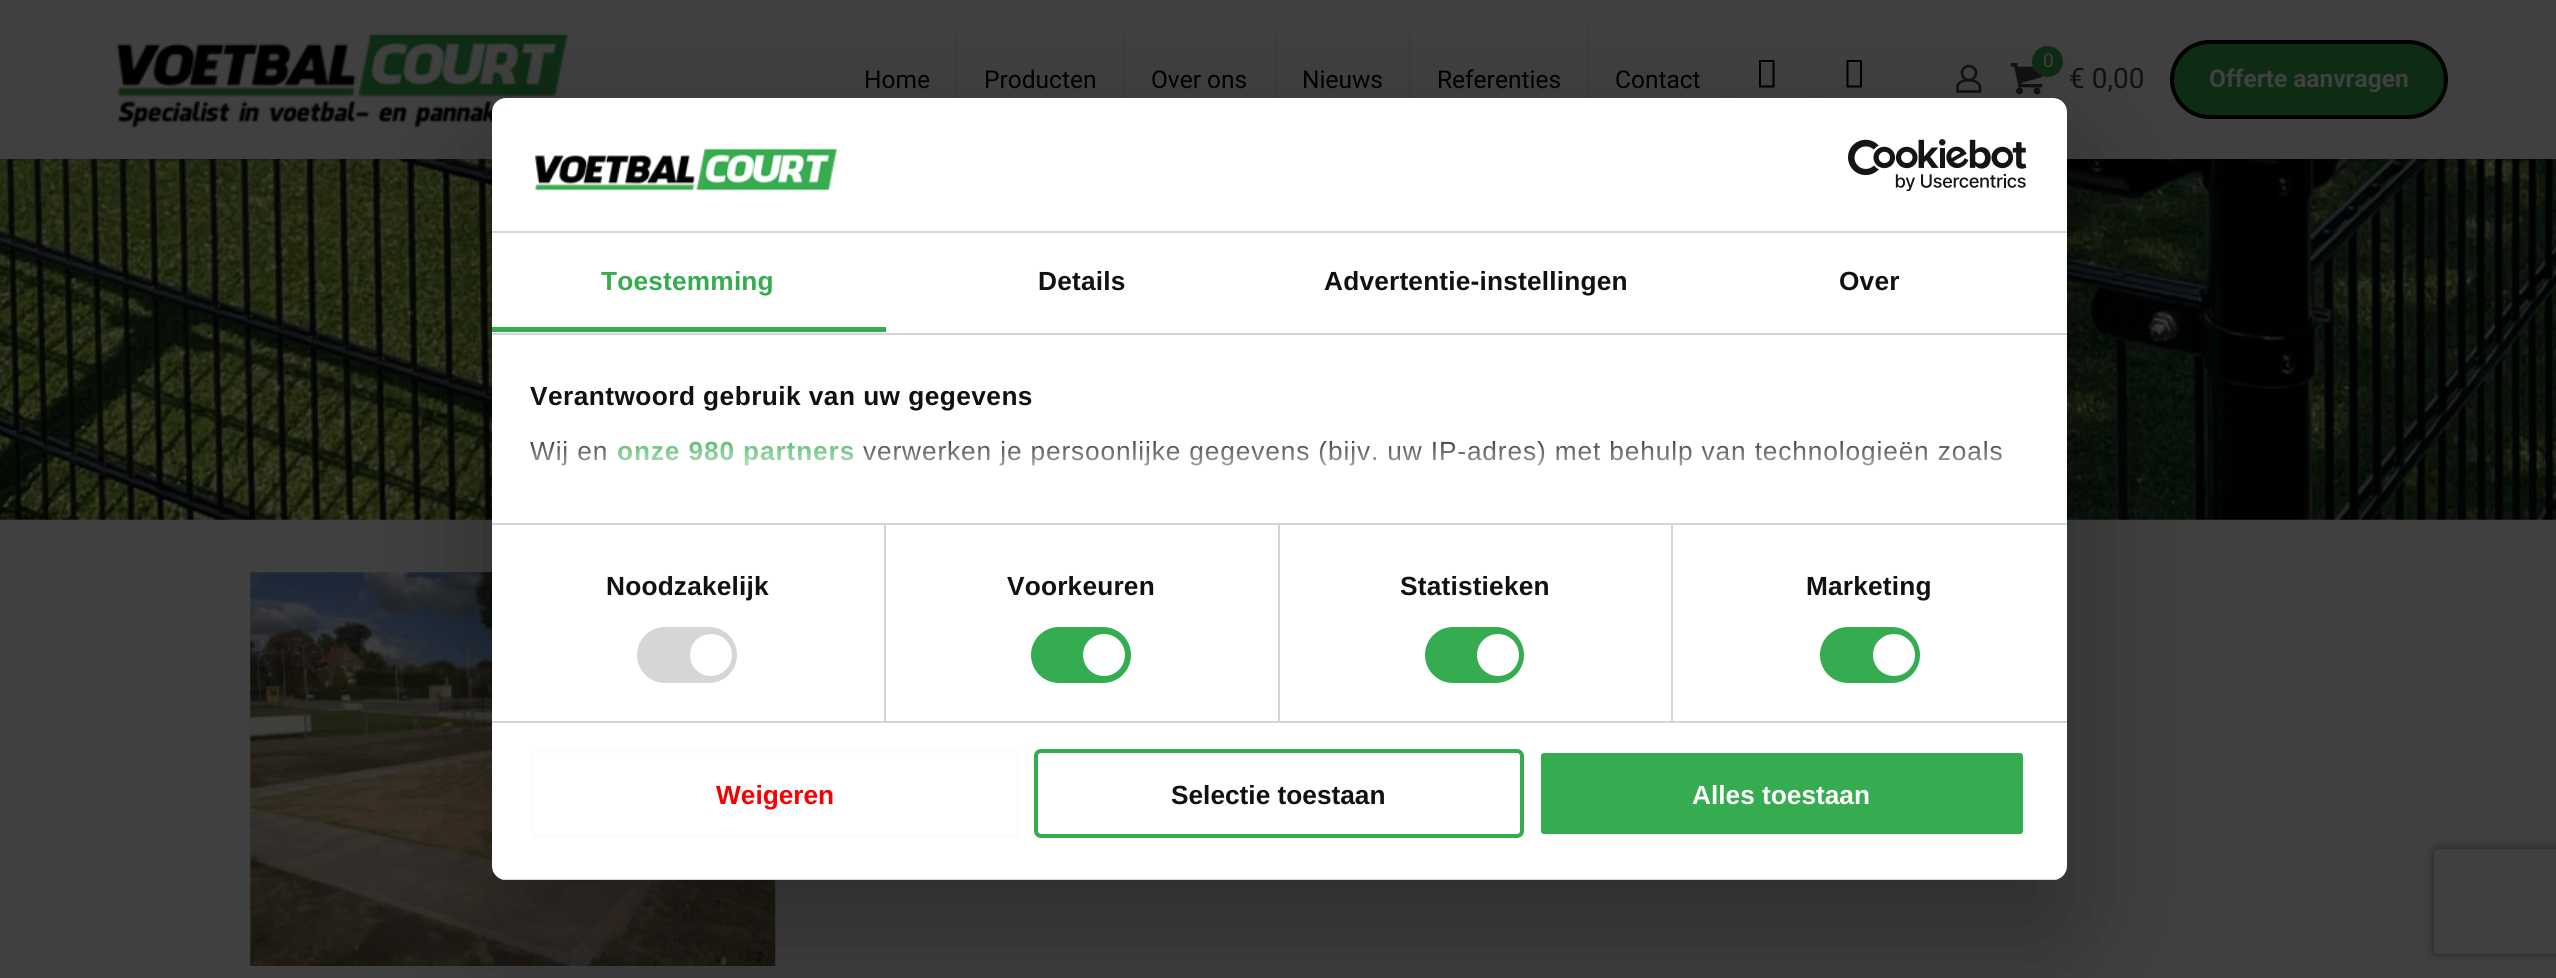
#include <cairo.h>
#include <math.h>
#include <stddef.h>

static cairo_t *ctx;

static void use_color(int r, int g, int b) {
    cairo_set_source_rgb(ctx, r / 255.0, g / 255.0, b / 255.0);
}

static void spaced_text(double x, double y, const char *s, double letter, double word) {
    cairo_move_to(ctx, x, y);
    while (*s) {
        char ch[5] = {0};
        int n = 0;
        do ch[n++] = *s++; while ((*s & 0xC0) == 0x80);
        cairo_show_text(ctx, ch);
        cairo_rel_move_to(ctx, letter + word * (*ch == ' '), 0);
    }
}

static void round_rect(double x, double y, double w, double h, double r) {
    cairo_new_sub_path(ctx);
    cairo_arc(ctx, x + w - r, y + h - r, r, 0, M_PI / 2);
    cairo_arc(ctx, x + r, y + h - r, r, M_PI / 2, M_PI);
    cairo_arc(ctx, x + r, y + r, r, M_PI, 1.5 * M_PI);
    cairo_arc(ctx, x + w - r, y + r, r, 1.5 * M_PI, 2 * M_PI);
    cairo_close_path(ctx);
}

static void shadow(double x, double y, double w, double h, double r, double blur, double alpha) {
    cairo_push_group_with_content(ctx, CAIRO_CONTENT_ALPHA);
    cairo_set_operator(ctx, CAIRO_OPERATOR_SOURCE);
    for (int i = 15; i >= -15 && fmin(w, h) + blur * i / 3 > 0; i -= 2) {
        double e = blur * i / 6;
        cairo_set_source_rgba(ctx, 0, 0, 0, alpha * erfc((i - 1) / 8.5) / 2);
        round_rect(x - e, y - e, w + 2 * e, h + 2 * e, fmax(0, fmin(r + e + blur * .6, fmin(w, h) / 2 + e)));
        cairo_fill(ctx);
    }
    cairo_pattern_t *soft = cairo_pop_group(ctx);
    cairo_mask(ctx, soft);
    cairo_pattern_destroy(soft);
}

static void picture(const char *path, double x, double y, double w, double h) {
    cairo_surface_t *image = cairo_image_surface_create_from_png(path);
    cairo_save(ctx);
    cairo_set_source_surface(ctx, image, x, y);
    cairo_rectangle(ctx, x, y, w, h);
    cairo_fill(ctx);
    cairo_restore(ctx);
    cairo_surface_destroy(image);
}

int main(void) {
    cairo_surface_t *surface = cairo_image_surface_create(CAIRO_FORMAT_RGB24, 2556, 978);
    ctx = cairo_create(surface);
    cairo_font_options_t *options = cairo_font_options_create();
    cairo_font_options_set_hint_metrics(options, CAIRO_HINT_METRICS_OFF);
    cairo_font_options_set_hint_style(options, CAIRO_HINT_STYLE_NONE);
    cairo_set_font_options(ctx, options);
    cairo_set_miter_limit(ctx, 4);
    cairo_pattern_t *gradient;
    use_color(64, 64, 64);
    cairo_paint(ctx);
    picture("img1.png", 0, 159, 2556, 1);
    picture("img2.png", 116, 33, 452, 96);
    use_color(61, 61, 61);
    cairo_rectangle(ctx, 956, 26, 2, 72);
    cairo_fill(ctx);
    cairo_select_font_face(ctx, "Roboto", CAIRO_FONT_SLANT_NORMAL, CAIRO_FONT_WEIGHT_NORMAL);
    cairo_set_font_size(ctx, 24.5);
    use_color(0, 0, 0);
    cairo_move_to(ctx, 864, 88);
    cairo_show_text(ctx, "Home");
    use_color(61, 61, 61);
    cairo_rectangle(ctx, 1124, 26, 2, 72);
    cairo_fill(ctx);
    use_color(0, 0, 0);
    cairo_move_to(ctx, 984, 88);
    cairo_show_text(ctx, "Producten");
    use_color(61, 61, 61);
    cairo_rectangle(ctx, 1274, 26, 2, 72);
    cairo_fill(ctx);
    use_color(0, 0, 0);
    cairo_move_to(ctx, 1151, 88);
    cairo_show_text(ctx, "Over ons");
    use_color(61, 61, 61);
    cairo_rectangle(ctx, 1409, 26, 2, 72);
    cairo_fill(ctx);
    use_color(0, 0, 0);
    cairo_move_to(ctx, 1302, 88);
    cairo_show_text(ctx, "Nieuws");
    use_color(61, 61, 61);
    cairo_rectangle(ctx, 1587, 26, 2, 72);
    cairo_fill(ctx);
    use_color(0, 0, 0);
    cairo_move_to(ctx, 1437, 88);
    cairo_show_text(ctx, "Referenties");
    use_color(61, 61, 61);
    cairo_rectangle(ctx, 1727, 26, 2, 72);
    cairo_fill(ctx);
    use_color(0, 0, 0);
    cairo_move_to(ctx, 1615, 88);
    cairo_show_text(ctx, "Contact");
    use_color(61, 61, 61);
    cairo_rectangle(ctx, 1815, 26, 2, 72);
    cairo_fill(ctx);
    use_color(0, 0, 0);
    cairo_new_path(ctx);
    cairo_move_to(ctx, 1759, 87.5);
    cairo_line_to(ctx, 1759, 60);
    cairo_line_to(ctx, 1774.5, 60);
    cairo_line_to(ctx, 1774.5, 87.5);
    cairo_close_path(ctx);
    cairo_move_to(ctx, 1761, 85.5);
    cairo_line_to(ctx, 1772.5, 85.5);
    cairo_line_to(ctx, 1772.5, 62);
    cairo_line_to(ctx, 1761, 62);
    cairo_close_path(ctx);
    cairo_fill(ctx);
    cairo_new_path(ctx);
    cairo_move_to(ctx, 1846.5, 87.5);
    cairo_line_to(ctx, 1846.5, 60);
    cairo_line_to(ctx, 1862, 60);
    cairo_line_to(ctx, 1862, 87.5);
    cairo_close_path(ctx);
    cairo_move_to(ctx, 1848.5, 85.5);
    cairo_line_to(ctx, 1860, 85.5);
    cairo_line_to(ctx, 1860, 62);
    cairo_line_to(ctx, 1848.5, 62);
    cairo_close_path(ctx);
    cairo_fill(ctx);
    cairo_arc(ctx, 1969, 73, 7, 0, 2 * M_PI);
    use_color(17, 17, 17);
    cairo_set_line_width(ctx, 2.6);
    cairo_stroke(ctx);
    cairo_new_path(ctx);
    cairo_move_to(ctx, 1980, 87.5);
    cairo_line_to(ctx, 1980, 91.5);
    cairo_line_to(ctx, 1957.5, 91.5);
    cairo_line_to(ctx, 1957.5, 86);
    cairo_curve_to(ctx, 1960, 77.5, 1980, 78.5, 1980, 87.5);
    cairo_close_path(ctx);
    cairo_stroke(ctx);
    picture("img3.png", 2010, 63, 33, 32);
    use_color(14, 43, 20);
    cairo_arc(ctx, 2047.5, 61.5, 15.5, 0, 2 * M_PI);
    cairo_fill(ctx);
    cairo_set_font_size(ctx, 19);
    use_color(64, 64, 64);
    cairo_move_to(ctx, 2043, 67);
    cairo_show_text(ctx, "0");
    cairo_set_font_size(ctx, 28);
    use_color(17, 17, 17);
    cairo_move_to(ctx, 2069, 88);
    cairo_show_text(ctx, "€ 0,00");
    use_color(14, 43, 20);
    round_rect(2172, 42, 274, 75, 37.5);
    cairo_fill_preserve(ctx);
    use_color(0, 0, 0);
    cairo_set_line_width(ctx, 4);
    cairo_stroke(ctx);
    cairo_select_font_face(ctx, "Roboto", CAIRO_FONT_SLANT_NORMAL, CAIRO_FONT_WEIGHT_BOLD);
    cairo_set_font_size(ctx, 24.5);
    use_color(64, 64, 64);
    cairo_move_to(ctx, 2209, 87);
    cairo_show_text(ctx, "Offerte aanvragen");
    picture("img4.png", 0, 159, 2556, 361);
    picture("img5.png", 250, 572, 526, 394);
    use_color(0, 0, 0);
    shadow(492, 154, 1575, 782, 14, 59.5, 0.3);
    use_color(255, 255, 255);
    round_rect(492, 98, 1575, 782, 14);
    cairo_fill(ctx);
    use_color(214, 214, 214);
    cairo_rectangle(ctx, 492, 231, 1575, 2);
    cairo_fill(ctx);
    picture("img6.png", 535, 148, 302, 43);
    picture("img7.png", 1848, 139, 179, 52);
    cairo_rectangle(ctx, 492, 333, 1575, 2);
    cairo_fill(ctx);
    use_color(52, 172, 79);
    cairo_rectangle(ctx, 492, 327, 394, 5);
    cairo_fill(ctx);
    cairo_select_font_face(ctx, "Liberation Sans", CAIRO_FONT_SLANT_NORMAL, CAIRO_FONT_WEIGHT_BOLD);
    cairo_set_font_size(ctx, 26.25);
    spaced_text(601, 290, "Toestemming", 0.2, 0);
    use_color(17, 17, 17);
    spaced_text(1038, 290, "Details", 0.2, 0);
    spaced_text(1324, 290, "Advertentie-instellingen", 0.2, 0);
    spaced_text(1839, 290, "Over", 0.2, 0);
    use_color(214, 214, 214);
    cairo_rectangle(ctx, 492, 523, 1575, 2);
    cairo_fill(ctx);
    use_color(17, 17, 17);
    spaced_text(530, 405, "Verantwoord gebruik van uw gegevens", 0.45, 0);
    cairo_select_font_face(ctx, "Liberation Sans", CAIRO_FONT_SLANT_NORMAL, CAIRO_FONT_WEIGHT_NORMAL);
    spaced_text(530, 460, "Wij en", 0.88, 0);
    cairo_select_font_face(ctx, "Liberation Sans", CAIRO_FONT_SLANT_NORMAL, CAIRO_FONT_WEIGHT_BOLD);
    use_color(52, 172, 79);
    spaced_text(617, 460, "onze 980 partners", 0.88, 0);
    cairo_select_font_face(ctx, "Liberation Sans", CAIRO_FONT_SLANT_NORMAL, CAIRO_FONT_WEIGHT_NORMAL);
    use_color(17, 17, 17);
    spaced_text(863, 460, "verwerken je persoonlijke gegevens (bijv. uw IP-adres) met behulp van technologieën zoals", 0.88, 0);
    gradient = cairo_pattern_create_linear(1261, 524, 1261, 429);
    cairo_pattern_add_color_stop_rgba(gradient, 0, 1, 1, 1, 1);
    cairo_pattern_add_color_stop_rgba(gradient, 0.5, 1, 1, 1, 0.8);
    cairo_pattern_add_color_stop_rgba(gradient, 1, 1, 1, 1, 0);
    cairo_set_source(ctx, gradient);
    cairo_pattern_destroy(gradient);
    cairo_rectangle(ctx, 530, 441, 1472, 25);
    cairo_fill(ctx);
    use_color(214, 214, 214);
    cairo_rectangle(ctx, 492, 721, 1575, 2);
    cairo_fill(ctx);
    cairo_rectangle(ctx, 884, 525, 2, 196);
    cairo_fill(ctx);
    cairo_select_font_face(ctx, "Liberation Sans", CAIRO_FONT_SLANT_NORMAL, CAIRO_FONT_WEIGHT_BOLD);
    use_color(17, 17, 17);
    spaced_text(606, 595, "Noodzakelijk", 0.2, 0);
    use_color(214, 214, 214);
    round_rect(637, 627, 100, 56, 28);
    cairo_fill(ctx);
    use_color(255, 255, 255);
    cairo_arc(ctx, 711, 655, 21, 0, 2 * M_PI);
    cairo_fill(ctx);
    use_color(214, 214, 214);
    cairo_rectangle(ctx, 1278, 525, 2, 196);
    cairo_fill(ctx);
    use_color(17, 17, 17);
    spaced_text(1007, 595, "Voorkeuren", 0.2, 0);
    use_color(52, 172, 79);
    round_rect(1031, 627, 100, 56, 28);
    cairo_fill(ctx);
    use_color(255, 255, 255);
    cairo_arc(ctx, 1104, 655, 21, 0, 2 * M_PI);
    cairo_fill(ctx);
    use_color(214, 214, 214);
    cairo_rectangle(ctx, 1671, 525, 2, 196);
    cairo_fill(ctx);
    use_color(17, 17, 17);
    spaced_text(1400, 595, "Statistieken", 0.2, 0);
    use_color(52, 172, 79);
    round_rect(1425, 627, 99, 56, 28);
    cairo_fill(ctx);
    use_color(255, 255, 255);
    cairo_arc(ctx, 1498, 655, 21, 0, 2 * M_PI);
    cairo_fill(ctx);
    use_color(17, 17, 17);
    spaced_text(1806, 595, "Marketing", 0.2, 0);
    use_color(52, 172, 79);
    round_rect(1820, 627, 100, 56, 28);
    cairo_fill(ctx);
    use_color(255, 255, 255);
    cairo_arc(ctx, 1894, 655, 21, 0, 2 * M_PI);
    cairo_fill(ctx);
    cairo_save(ctx);
    round_rect(492, 98, 1575, 782, 14);
    cairo_clip(ctx);
    use_color(214, 214, 214);
    cairo_rectangle(ctx, 501, 879, 1557, 1);
    cairo_fill(ctx);
    cairo_restore(ctx);
    round_rect(532, 751, 486, 85, 5);
    use_color(252, 252, 252);
    cairo_stroke(ctx);
    use_color(248, 0, 0);
    cairo_move_to(ctx, 716, 804);
    cairo_show_text(ctx, "Weigeren");
    round_rect(1036, 751, 486, 85, 5);
    use_color(52, 172, 79);
    cairo_stroke(ctx);
    use_color(17, 17, 17);
    cairo_move_to(ctx, 1171, 804);
    cairo_show_text(ctx, "Selectie toestaan");
    use_color(52, 172, 79);
    round_rect(1539, 751, 486, 85, 5);
    cairo_fill_preserve(ctx);
    use_color(255, 255, 255);
    cairo_stroke(ctx);
    cairo_move_to(ctx, 1692, 804);
    cairo_show_text(ctx, "Alles toestaan");
    cairo_save(ctx);
    cairo_set_fill_rule(ctx, CAIRO_FILL_RULE_EVEN_ODD);
    cairo_new_path(ctx);
    cairo_move_to(ctx, 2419, 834);
    cairo_line_to(ctx, 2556, 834);
    cairo_line_to(ctx, 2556, 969);
    cairo_line_to(ctx, 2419, 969);
    cairo_close_path(ctx);
    cairo_move_to(ctx, 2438, 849);
    cairo_line_to(ctx, 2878, 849);
    cairo_curve_to(ctx, 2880, 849, 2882, 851, 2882, 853);
    cairo_line_to(ctx, 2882, 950);
    cairo_curve_to(ctx, 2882, 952, 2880, 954, 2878, 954);
    cairo_line_to(ctx, 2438, 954);
    cairo_curve_to(ctx, 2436, 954, 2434, 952, 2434, 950);
    cairo_line_to(ctx, 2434, 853);
    cairo_curve_to(ctx, 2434, 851, 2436, 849, 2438, 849);
    cairo_close_path(ctx);
    cairo_clip(ctx);
    use_color(32, 32, 32);
    shadow(2434, 849, 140, 105, 4, 4.5, 1);
    cairo_restore(ctx);
    cairo_surface_write_to_png(surface, "result.png");
    cairo_font_options_destroy(options);
    cairo_destroy(ctx);
    cairo_surface_destroy(surface);
    return 0;
}
